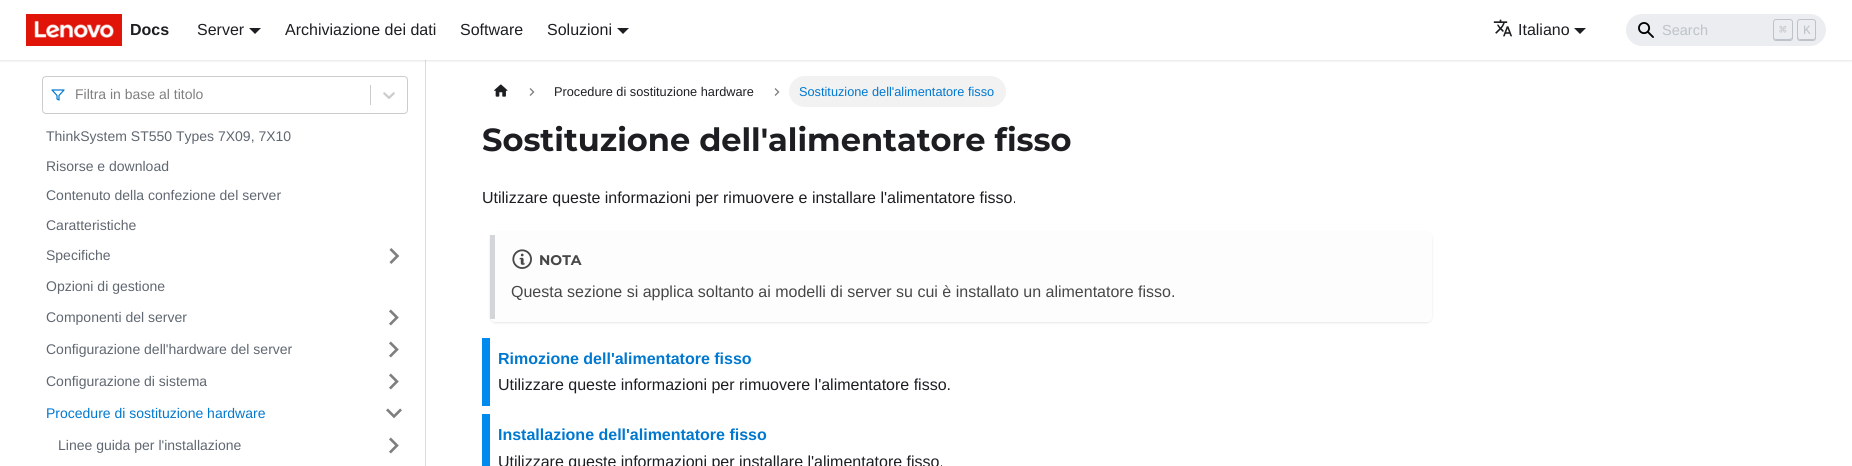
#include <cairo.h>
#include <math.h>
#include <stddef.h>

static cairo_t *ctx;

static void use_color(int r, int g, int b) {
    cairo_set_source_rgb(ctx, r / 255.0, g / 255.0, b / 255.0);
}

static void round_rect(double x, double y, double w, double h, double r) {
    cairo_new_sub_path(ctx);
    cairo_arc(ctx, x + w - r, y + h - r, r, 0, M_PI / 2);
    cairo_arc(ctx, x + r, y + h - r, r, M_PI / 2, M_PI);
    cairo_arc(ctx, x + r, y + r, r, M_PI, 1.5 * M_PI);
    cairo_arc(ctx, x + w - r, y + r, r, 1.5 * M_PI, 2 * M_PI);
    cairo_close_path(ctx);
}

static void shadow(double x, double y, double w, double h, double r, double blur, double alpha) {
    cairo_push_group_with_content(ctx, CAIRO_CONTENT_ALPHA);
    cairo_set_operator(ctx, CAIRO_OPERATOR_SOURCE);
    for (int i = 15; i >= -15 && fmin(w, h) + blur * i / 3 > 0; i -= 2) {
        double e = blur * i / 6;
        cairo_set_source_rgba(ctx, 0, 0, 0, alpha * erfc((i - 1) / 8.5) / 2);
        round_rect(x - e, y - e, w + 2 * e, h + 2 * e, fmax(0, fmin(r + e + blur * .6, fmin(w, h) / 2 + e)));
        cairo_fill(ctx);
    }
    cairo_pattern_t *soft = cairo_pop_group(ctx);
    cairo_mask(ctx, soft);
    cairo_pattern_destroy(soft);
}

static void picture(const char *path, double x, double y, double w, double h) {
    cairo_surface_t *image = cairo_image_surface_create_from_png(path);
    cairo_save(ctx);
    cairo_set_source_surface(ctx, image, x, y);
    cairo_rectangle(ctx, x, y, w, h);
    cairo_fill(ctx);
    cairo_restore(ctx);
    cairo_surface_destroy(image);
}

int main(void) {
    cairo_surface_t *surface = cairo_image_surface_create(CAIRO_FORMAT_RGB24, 1852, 466);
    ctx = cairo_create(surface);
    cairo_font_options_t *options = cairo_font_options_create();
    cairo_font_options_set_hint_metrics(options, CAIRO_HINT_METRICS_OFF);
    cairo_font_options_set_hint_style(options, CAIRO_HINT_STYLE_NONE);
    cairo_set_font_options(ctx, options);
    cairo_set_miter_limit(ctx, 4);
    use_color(255, 255, 255);
    cairo_paint(ctx);
    use_color(218, 221, 225);
    cairo_rectangle(ctx, 425, 60, 1, 406);
    cairo_fill(ctx);
    use_color(0, 0, 0);
    shadow(0, 1, 1852, 60, 0, 1, 0.1);
    use_color(255, 255, 255);
    cairo_rectangle(ctx, 0, 0, 1852, 60);
    cairo_fill(ctx);
    picture("img1.png", 26, 14, 96, 32);
    cairo_select_font_face(ctx, "Liberation Sans", CAIRO_FONT_SLANT_NORMAL, CAIRO_FONT_WEIGHT_BOLD);
    cairo_set_font_size(ctx, 16);
    use_color(28, 30, 33);
    cairo_move_to(ctx, 130, 35);
    cairo_show_text(ctx, "Docs");
    cairo_select_font_face(ctx, "Liberation Sans", CAIRO_FONT_SLANT_NORMAL, CAIRO_FONT_WEIGHT_NORMAL);
    cairo_move_to(ctx, 197, 35);
    cairo_show_text(ctx, "Server");
    cairo_new_path(ctx);
    cairo_move_to(ctx, 249, 28);
    cairo_line_to(ctx, 261, 28);
    cairo_line_to(ctx, 255, 34);
    cairo_close_path(ctx);
    cairo_fill(ctx);
    cairo_move_to(ctx, 285, 35);
    cairo_show_text(ctx, "Archiviazione dei dati");
    cairo_move_to(ctx, 460, 35);
    cairo_show_text(ctx, "Software");
    cairo_move_to(ctx, 547, 35);
    cairo_show_text(ctx, "Soluzioni");
    cairo_new_path(ctx);
    cairo_move_to(ctx, 617, 28);
    cairo_line_to(ctx, 629, 28);
    cairo_line_to(ctx, 623, 34);
    cairo_close_path(ctx);
    cairo_fill(ctx);
    picture("img2.png", 1493, 19, 20, 18);
    cairo_move_to(ctx, 1518, 35);
    cairo_show_text(ctx, "Italiano");
    cairo_new_path(ctx);
    cairo_move_to(ctx, 1574, 28);
    cairo_line_to(ctx, 1586, 28);
    cairo_line_to(ctx, 1580, 34);
    cairo_close_path(ctx);
    cairo_fill(ctx);
    use_color(235, 237, 240);
    round_rect(1626, 14, 200, 32, 16);
    cairo_fill(ctx);
    picture("img3.png", 1638, 22, 16, 16);
    cairo_set_font_size(ctx, 14.5);
    use_color(190, 195, 201);
    cairo_move_to(ctx, 1662, 35);
    cairo_show_text(ctx, "Search");
    cairo_new_path(ctx);
    cairo_move_to(ctx, 1792, 37);
    cairo_curve_to(ctx, 1791.5, 38.5, 1790.5, 39, 1788, 39);
    cairo_line_to(ctx, 1776, 39);
    cairo_curve_to(ctx, 1775, 39, 1774.5, 38.5, 1774, 37.5);
    cairo_curve_to(ctx, 1774, 40.5, 1776.5, 40, 1778.5, 40);
    cairo_line_to(ctx, 1787.5, 40);
    cairo_curve_to(ctx, 1790.5, 40, 1792, 40.5, 1792, 37);
    cairo_close_path(ctx);
    cairo_fill(ctx);
    round_rect(1773.5, 19.5, 19, 21, 2.5);
    cairo_set_line_width(ctx, 1);
    cairo_stroke(ctx);
    cairo_select_font_face(ctx, "DejaVu Sans Mono", CAIRO_FONT_SLANT_NORMAL, CAIRO_FONT_WEIGHT_NORMAL);
    cairo_set_font_size(ctx, 12.75);
    cairo_move_to(ctx, 1779, 34);
    cairo_show_text(ctx, "⌘");
    cairo_new_path(ctx);
    cairo_move_to(ctx, 1815, 37);
    cairo_curve_to(ctx, 1815, 38, 1814, 39, 1813, 39);
    cairo_line_to(ctx, 1799, 39);
    cairo_line_to(ctx, 1798, 36.5);
    cairo_curve_to(ctx, 1798, 40, 1799, 40, 1802, 40);
    cairo_line_to(ctx, 1811, 40);
    cairo_curve_to(ctx, 1814, 40, 1815, 40, 1815, 37);
    cairo_close_path(ctx);
    cairo_fill(ctx);
    round_rect(1797.5, 19.5, 18, 21, 2.5);
    cairo_stroke(ctx);
    cairo_select_font_face(ctx, "Liberation Mono", CAIRO_FONT_SLANT_NORMAL, CAIRO_FONT_WEIGHT_NORMAL);
    cairo_move_to(ctx, 1803, 34);
    cairo_show_text(ctx, "K");
    round_rect(42.5, 76.5, 365, 37, 3.5);
    use_color(204, 204, 204);
    cairo_stroke(ctx);
    cairo_new_path(ctx);
    cairo_move_to(ctx, 64, 90);
    cairo_line_to(ctx, 52, 90);
    cairo_line_to(ctx, 57, 95.5);
    cairo_line_to(ctx, 57, 99);
    cairo_line_to(ctx, 59, 100);
    cairo_line_to(ctx, 59, 95.5);
    cairo_close_path(ctx);
    use_color(0, 120, 208);
    cairo_set_line_width(ctx, 1.2);
    cairo_set_line_cap(ctx, CAIRO_LINE_CAP_ROUND);
    cairo_set_line_join(ctx, CAIRO_LINE_JOIN_ROUND);
    cairo_stroke(ctx);
    cairo_select_font_face(ctx, "Liberation Sans", CAIRO_FONT_SLANT_NORMAL, CAIRO_FONT_WEIGHT_NORMAL);
    cairo_set_font_size(ctx, 14);
    use_color(128, 128, 128);
    cairo_move_to(ctx, 75, 99);
    cairo_show_text(ctx, "Filtra in base al titolo");
    use_color(204, 204, 204);
    cairo_rectangle(ctx, 370, 85, 1, 20);
    cairo_fill(ctx);
    picture("img4.png", 383, 92, 12, 7);
    use_color(96, 103, 112);
    cairo_move_to(ctx, 46, 141);
    cairo_show_text(ctx, "ThinkSystem ST550 Types 7X09, 7X10");
    cairo_move_to(ctx, 46, 171);
    cairo_show_text(ctx, "Risorse e download");
    cairo_move_to(ctx, 46, 200);
    cairo_show_text(ctx, "Contenuto della confezione del server");
    cairo_move_to(ctx, 46, 230);
    cairo_show_text(ctx, "Caratteristiche");
    cairo_move_to(ctx, 46, 260);
    cairo_show_text(ctx, "Specifiche");
    picture("img5.png", 389, 248, 11, 16);
    cairo_move_to(ctx, 46, 291);
    cairo_show_text(ctx, "Opzioni di gestione");
    cairo_move_to(ctx, 46, 322);
    cairo_show_text(ctx, "Componenti del server");
    picture("img6.png", 389, 309, 10, 17);
    cairo_move_to(ctx, 46, 354);
    cairo_show_text(ctx, "Configurazione dell'hardware del server");
    picture("img6.png", 389, 341, 10, 17);
    cairo_move_to(ctx, 46, 386);
    cairo_show_text(ctx, "Configurazione di sistema");
    picture("img6.png", 389, 373, 10, 17);
    use_color(0, 120, 208);
    cairo_move_to(ctx, 46, 418);
    cairo_show_text(ctx, "Procedure di sostituzione hardware");
    picture("img7.png", 386, 408, 16, 11);
    use_color(96, 103, 112);
    cairo_move_to(ctx, 58, 450);
    cairo_show_text(ctx, "Linee guida per l'installazione");
    picture("img6.png", 389, 437, 10, 17);
    picture("img8.png", 494, 84, 14, 13);
    picture("img9.png", 529, 88, 6, 8);
    cairo_set_font_size(ctx, 12.75);
    use_color(28, 30, 33);
    cairo_move_to(ctx, 554, 96);
    cairo_show_text(ctx, "Procedure di sostituzione hardware");
    picture("img9.png", 774, 88, 6, 8);
    use_color(242, 242, 242);
    round_rect(789, 76, 217, 31, 15.5);
    cairo_fill(ctx);
    use_color(0, 120, 208);
    cairo_move_to(ctx, 799, 96);
    cairo_show_text(ctx, "Sostituzione dell'alimentatore fisso");
    cairo_select_font_face(ctx, "Montserrat", CAIRO_FONT_SLANT_NORMAL, CAIRO_FONT_WEIGHT_BOLD);
    cairo_set_font_size(ctx, 32);
    use_color(28, 30, 33);
    cairo_move_to(ctx, 482, 151);
    cairo_show_text(ctx, "Sostituzione dell'alimentatore fisso");
    cairo_select_font_face(ctx, "Liberation Sans", CAIRO_FONT_SLANT_NORMAL, CAIRO_FONT_WEIGHT_NORMAL);
    cairo_set_font_size(ctx, 16);
    cairo_move_to(ctx, 482, 203);
    cairo_show_text(ctx, "Utilizzare queste informazioni per rimuovere e installare l'alimentatore fisso.");
    cairo_save(ctx);
    cairo_set_fill_rule(ctx, CAIRO_FILL_RULE_EVEN_ODD);
    cairo_new_path(ctx);
    cairo_move_to(ctx, 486, 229);
    cairo_line_to(ctx, 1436, 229);
    cairo_line_to(ctx, 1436, 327);
    cairo_line_to(ctx, 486, 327);
    cairo_close_path(ctx);
    cairo_move_to(ctx, 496, 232);
    cairo_line_to(ctx, 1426, 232);
    cairo_curve_to(ctx, 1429.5, 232, 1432, 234.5, 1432, 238);
    cairo_line_to(ctx, 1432, 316);
    cairo_curve_to(ctx, 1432, 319.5, 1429.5, 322, 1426, 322);
    cairo_line_to(ctx, 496, 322);
    cairo_curve_to(ctx, 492.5, 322, 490, 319.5, 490, 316);
    cairo_line_to(ctx, 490, 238);
    cairo_curve_to(ctx, 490, 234.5, 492.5, 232, 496, 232);
    cairo_close_path(ctx);
    cairo_clip(ctx);
    use_color(0, 0, 0);
    shadow(490, 233, 942, 90, 6, 1, 0.1);
    cairo_restore(ctx);
    use_color(253, 253, 254);
    cairo_new_path(ctx);
    cairo_move_to(ctx, 496, 232);
    cairo_line_to(ctx, 1426, 232);
    cairo_curve_to(ctx, 1429, 232, 1432, 235, 1432, 238);
    cairo_line_to(ctx, 1432, 316);
    cairo_curve_to(ctx, 1432, 319, 1429, 322, 1426, 322);
    cairo_line_to(ctx, 496, 322);
    cairo_curve_to(ctx, 496, 322, 495, 319, 495, 316);
    cairo_line_to(ctx, 495, 238);
    cairo_curve_to(ctx, 495, 235, 496, 232, 496, 232);
    cairo_close_path(ctx);
    cairo_fill(ctx);
    use_color(212, 213, 216);
    cairo_rectangle(ctx, 490, 235, 5, 84);
    cairo_fill(ctx);
    picture("img10.png", 512, 249, 20, 20);
    cairo_select_font_face(ctx, "Montserrat", CAIRO_FONT_SLANT_NORMAL, CAIRO_FONT_WEIGHT_BOLD);
    cairo_set_font_size(ctx, 14);
    use_color(71, 71, 72);
    cairo_move_to(ctx, 539, 265);
    cairo_show_text(ctx, "NOTA");
    cairo_select_font_face(ctx, "Liberation Sans", CAIRO_FONT_SLANT_NORMAL, CAIRO_FONT_WEIGHT_NORMAL);
    cairo_set_font_size(ctx, 16);
    cairo_move_to(ctx, 511, 297);
    cairo_show_text(ctx, "Questa sezione si applica soltanto ai modelli di server su cui è installato un alimentatore fisso.");
    use_color(0, 138, 239);
    cairo_rectangle(ctx, 482, 338, 8, 68);
    cairo_fill(ctx);
    cairo_select_font_face(ctx, "Liberation Sans", CAIRO_FONT_SLANT_NORMAL, CAIRO_FONT_WEIGHT_BOLD);
    use_color(0, 120, 208);
    cairo_move_to(ctx, 498, 364);
    cairo_show_text(ctx, "Rimozione dell'alimentatore fisso");
    cairo_select_font_face(ctx, "Liberation Sans", CAIRO_FONT_SLANT_NORMAL, CAIRO_FONT_WEIGHT_NORMAL);
    use_color(28, 30, 33);
    cairo_move_to(ctx, 498, 390);
    cairo_show_text(ctx, "Utilizzare queste informazioni per rimuovere l'alimentatore fisso.");
    use_color(0, 138, 239);
    cairo_rectangle(ctx, 482, 414, 8, 52);
    cairo_fill(ctx);
    cairo_select_font_face(ctx, "Liberation Sans", CAIRO_FONT_SLANT_NORMAL, CAIRO_FONT_WEIGHT_BOLD);
    use_color(0, 120, 208);
    cairo_move_to(ctx, 498, 440);
    cairo_show_text(ctx, "Installazione dell'alimentatore fisso");
    cairo_select_font_face(ctx, "Liberation Sans", CAIRO_FONT_SLANT_NORMAL, CAIRO_FONT_WEIGHT_NORMAL);
    use_color(28, 30, 33);
    cairo_move_to(ctx, 498, 467);
    cairo_show_text(ctx, "Utilizzare queste informazioni per installare l'alimentatore fisso.");
    cairo_surface_write_to_png(surface, "result.png");
    cairo_font_options_destroy(options);
    cairo_destroy(ctx);
    cairo_surface_destroy(surface);
    return 0;
}
